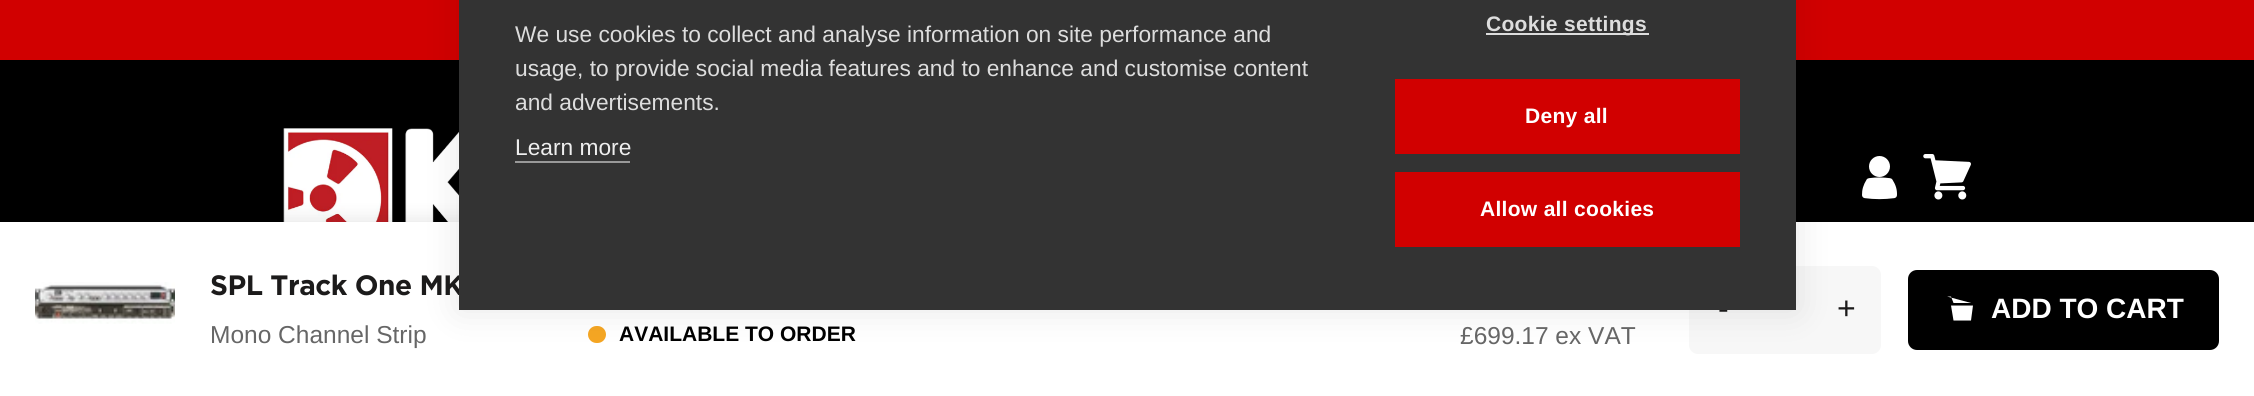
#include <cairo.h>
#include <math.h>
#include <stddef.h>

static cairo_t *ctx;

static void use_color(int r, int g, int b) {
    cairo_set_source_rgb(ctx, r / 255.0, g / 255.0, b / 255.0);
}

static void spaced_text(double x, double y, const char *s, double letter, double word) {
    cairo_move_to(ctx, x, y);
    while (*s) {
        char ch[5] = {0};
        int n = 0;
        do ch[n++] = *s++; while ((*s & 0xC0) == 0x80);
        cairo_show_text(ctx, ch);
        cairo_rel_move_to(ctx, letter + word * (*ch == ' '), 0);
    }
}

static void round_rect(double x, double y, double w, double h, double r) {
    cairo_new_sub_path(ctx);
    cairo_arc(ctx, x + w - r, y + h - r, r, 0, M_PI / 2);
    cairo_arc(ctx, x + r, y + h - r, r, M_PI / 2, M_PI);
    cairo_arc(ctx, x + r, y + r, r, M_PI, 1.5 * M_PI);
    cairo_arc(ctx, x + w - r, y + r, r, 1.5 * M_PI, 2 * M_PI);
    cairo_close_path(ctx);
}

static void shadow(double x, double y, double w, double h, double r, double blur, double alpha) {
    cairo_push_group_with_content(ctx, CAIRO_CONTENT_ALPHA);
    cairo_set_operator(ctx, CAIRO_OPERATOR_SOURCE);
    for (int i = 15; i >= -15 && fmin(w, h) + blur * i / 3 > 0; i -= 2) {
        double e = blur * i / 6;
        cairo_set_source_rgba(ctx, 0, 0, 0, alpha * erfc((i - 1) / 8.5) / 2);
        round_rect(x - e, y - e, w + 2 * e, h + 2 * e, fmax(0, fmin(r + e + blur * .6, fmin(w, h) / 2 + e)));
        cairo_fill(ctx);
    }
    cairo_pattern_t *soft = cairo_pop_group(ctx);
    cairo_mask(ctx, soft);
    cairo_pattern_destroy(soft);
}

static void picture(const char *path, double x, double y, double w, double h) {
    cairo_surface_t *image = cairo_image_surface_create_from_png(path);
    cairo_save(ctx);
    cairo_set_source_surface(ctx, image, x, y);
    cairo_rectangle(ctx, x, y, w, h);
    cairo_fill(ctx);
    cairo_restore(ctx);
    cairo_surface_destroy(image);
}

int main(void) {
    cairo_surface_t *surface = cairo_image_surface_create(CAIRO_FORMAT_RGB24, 2254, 396);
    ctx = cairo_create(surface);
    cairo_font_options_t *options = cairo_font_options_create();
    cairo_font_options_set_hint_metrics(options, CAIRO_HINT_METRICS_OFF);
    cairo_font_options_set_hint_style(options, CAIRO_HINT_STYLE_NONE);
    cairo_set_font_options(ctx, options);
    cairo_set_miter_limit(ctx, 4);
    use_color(209, 0, 0);
    cairo_paint(ctx);
    use_color(0, 0, 0);
    cairo_rectangle(ctx, 0, 60, 2254, 162);
    cairo_fill(ctx);
    picture("img1.png", 283, 128, 176, 94);
    picture("img2.png", 1862, 156, 35, 44);
    picture("img3.png", 1923, 154, 48, 46);
    use_color(0, 0, 0);
    shadow(0, 219, 2254, 175, 0, 9, 0.1);
    use_color(255, 255, 255);
    cairo_rectangle(ctx, 0, 222, 2254, 174);
    cairo_fill(ctx);
    use_color(245, 166, 35);
    round_rect(588, 326, 18, 17, 8.5);
    cairo_fill(ctx);
    use_color(247, 247, 247);
    round_rect(1689, 266, 192, 88, 9);
    cairo_fill(ctx);
    use_color(0, 0, 0);
    shadow(459, -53, 1337, 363, 0, 17.5, 0.1);
    cairo_select_font_face(ctx, "Gotham", CAIRO_FONT_SLANT_NORMAL, CAIRO_FONT_WEIGHT_BOLD);
    cairo_set_font_size(ctx, 28);
    use_color(28, 27, 27);
    spaced_text(210, 295, "SPL Track One MK", -0.5, 0);
    cairo_select_font_face(ctx, "Liberation Sans", CAIRO_FONT_SLANT_NORMAL, CAIRO_FONT_WEIGHT_NORMAL);
    cairo_set_font_size(ctx, 32);
    cairo_move_to(ctx, 1718, 319);
    cairo_show_text(ctx, "-");
    use_color(51, 51, 51);
    cairo_rectangle(ctx, 459, 0, 1337, 310);
    cairo_fill(ctx);
    cairo_set_font_size(ctx, 22.75);
    use_color(221, 221, 221);
    cairo_move_to(ctx, 515, 42);
    cairo_show_text(ctx, "We use cookies to collect and analyse information on site performance and");
    cairo_move_to(ctx, 515, 76);
    cairo_show_text(ctx, "usage, to provide social media features and to enhance and customise content");
    cairo_move_to(ctx, 515, 110);
    cairo_show_text(ctx, "and advertisements.");
    use_color(238, 238, 238);
    cairo_move_to(ctx, 515, 155);
    cairo_show_text(ctx, "Learn more");
    use_color(153, 153, 153);
    cairo_rectangle(ctx, 515, 161, 115, 2);
    cairo_fill(ctx);
    use_color(221, 221, 221);
    cairo_rectangle(ctx, 1486, 33, 163, 2);
    cairo_fill(ctx);
    cairo_select_font_face(ctx, "Liberation Sans", CAIRO_FONT_SLANT_NORMAL, CAIRO_FONT_WEIGHT_BOLD);
    cairo_set_font_size(ctx, 21);
    spaced_text(1486, 31, "Cookie settings", 0.3, 0);
    use_color(209, 0, 0);
    cairo_rectangle(ctx, 1395, 79, 345, 75);
    cairo_fill(ctx);
    use_color(255, 255, 255);
    spaced_text(1525, 123, "Deny all", 0.3, 0);
    use_color(209, 0, 0);
    cairo_rectangle(ctx, 1395, 172, 345, 75);
    cairo_fill(ctx);
    use_color(255, 255, 255);
    spaced_text(1480, 216, "Allow all cookies", 0.3, 0);
    picture("img4.png", 35, 282, 140, 42);
    cairo_select_font_face(ctx, "Liberation Sans", CAIRO_FONT_SLANT_NORMAL, CAIRO_FONT_WEIGHT_NORMAL);
    cairo_set_font_size(ctx, 24.5);
    use_color(102, 102, 102);
    cairo_move_to(ctx, 210, 343);
    cairo_show_text(ctx, "Mono Channel Strip");
    cairo_select_font_face(ctx, "Liberation Sans", CAIRO_FONT_SLANT_NORMAL, CAIRO_FONT_WEIGHT_BOLD);
    cairo_set_font_size(ctx, 21);
    use_color(0, 0, 0);
    cairo_move_to(ctx, 619, 341);
    cairo_show_text(ctx, "AVAILABLE TO ORDER");
    cairo_select_font_face(ctx, "Liberation Sans", CAIRO_FONT_SLANT_NORMAL, CAIRO_FONT_WEIGHT_NORMAL);
    cairo_set_font_size(ctx, 32);
    use_color(28, 27, 27);
    cairo_move_to(ctx, 1837, 319);
    cairo_show_text(ctx, "+");
    use_color(0, 0, 0);
    round_rect(1908, 270, 311, 80, 9);
    cairo_fill(ctx);
    use_color(255, 255, 255);
    cairo_new_path(ctx);
    cairo_move_to(ctx, 1951, 305.5);
    cairo_line_to(ctx, 1973, 305.5);
    cairo_line_to(ctx, 1971, 320.5);
    cairo_line_to(ctx, 1953.5, 320.5);
    cairo_close_path(ctx);
    cairo_move_to(ctx, 1947, 296.5);
    cairo_line_to(ctx, 1951, 296.5);
    cairo_line_to(ctx, 1953.5, 303);
    cairo_line_to(ctx, 1971, 303);
    cairo_fill(ctx);
    cairo_select_font_face(ctx, "Liberation Sans", CAIRO_FONT_SLANT_NORMAL, CAIRO_FONT_WEIGHT_BOLD);
    cairo_set_font_size(ctx, 28);
    cairo_move_to(ctx, 1991, 318);
    cairo_show_text(ctx, "ADD TO CART");
    cairo_select_font_face(ctx, "Liberation Sans", CAIRO_FONT_SLANT_NORMAL, CAIRO_FONT_WEIGHT_NORMAL);
    cairo_set_font_size(ctx, 24.5);
    use_color(102, 102, 102);
    cairo_move_to(ctx, 1460, 344);
    cairo_show_text(ctx, "£699.17 ex VAT");
    cairo_surface_write_to_png(surface, "result.png");
    cairo_font_options_destroy(options);
    cairo_destroy(ctx);
    cairo_surface_destroy(surface);
    return 0;
}
